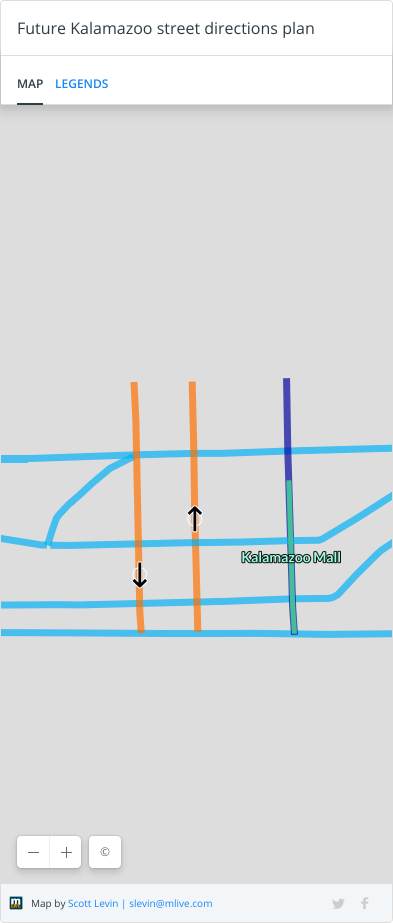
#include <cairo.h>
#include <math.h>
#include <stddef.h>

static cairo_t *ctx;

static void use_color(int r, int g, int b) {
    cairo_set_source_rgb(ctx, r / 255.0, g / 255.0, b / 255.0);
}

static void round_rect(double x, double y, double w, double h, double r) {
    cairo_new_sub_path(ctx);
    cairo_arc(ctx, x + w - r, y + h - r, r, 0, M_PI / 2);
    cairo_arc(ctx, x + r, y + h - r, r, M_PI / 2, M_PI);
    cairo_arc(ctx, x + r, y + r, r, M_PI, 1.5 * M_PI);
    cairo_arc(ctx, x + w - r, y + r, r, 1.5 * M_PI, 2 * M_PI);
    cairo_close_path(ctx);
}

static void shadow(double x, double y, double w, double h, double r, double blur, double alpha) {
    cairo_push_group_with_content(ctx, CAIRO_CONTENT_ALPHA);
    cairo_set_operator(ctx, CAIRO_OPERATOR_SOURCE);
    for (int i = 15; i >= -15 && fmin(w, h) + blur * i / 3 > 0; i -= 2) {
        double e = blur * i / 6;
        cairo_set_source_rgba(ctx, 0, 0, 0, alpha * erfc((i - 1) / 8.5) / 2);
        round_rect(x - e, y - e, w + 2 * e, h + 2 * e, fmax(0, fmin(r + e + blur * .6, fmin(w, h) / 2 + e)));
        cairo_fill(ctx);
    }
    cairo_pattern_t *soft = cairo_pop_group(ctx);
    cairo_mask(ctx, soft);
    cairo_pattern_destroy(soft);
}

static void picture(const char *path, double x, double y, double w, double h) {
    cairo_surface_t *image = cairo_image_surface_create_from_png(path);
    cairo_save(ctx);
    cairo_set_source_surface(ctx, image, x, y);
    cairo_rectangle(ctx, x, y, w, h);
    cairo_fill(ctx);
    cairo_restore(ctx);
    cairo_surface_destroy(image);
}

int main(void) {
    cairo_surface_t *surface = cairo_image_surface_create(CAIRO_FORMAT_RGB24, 393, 923);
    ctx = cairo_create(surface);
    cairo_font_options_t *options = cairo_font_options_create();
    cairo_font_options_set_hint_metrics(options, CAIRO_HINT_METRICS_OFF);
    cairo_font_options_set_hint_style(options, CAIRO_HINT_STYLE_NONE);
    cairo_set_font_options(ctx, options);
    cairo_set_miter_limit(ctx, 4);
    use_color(255, 255, 255);
    cairo_paint(ctx);
    round_rect(0.5, 0.5, 392, 922, 3.5);
    use_color(221, 221, 221);
    cairo_set_line_width(ctx, 1);
    cairo_stroke(ctx);
    cairo_rectangle(ctx, 1, 105, 391, 779);
    cairo_fill(ctx);
    use_color(0, 0, 0);
    shadow(1, 58, 391, 49, 0, 8, 0.24);
    use_color(255, 255, 255);
    cairo_new_path(ctx);
    cairo_move_to(ctx, 4, 1);
    cairo_line_to(ctx, 389, 1);
    cairo_curve_to(ctx, 390.5, 1, 392, 2.5, 392, 4);
    cairo_line_to(ctx, 392, 56);
    cairo_line_to(ctx, 1, 56);
    cairo_line_to(ctx, 1, 4);
    cairo_curve_to(ctx, 1, 2.5, 2.5, 1, 4, 1);
    cairo_close_path(ctx);
    cairo_fill(ctx);
    use_color(221, 221, 221);
    cairo_rectangle(ctx, 1, 55, 391, 1);
    cairo_fill(ctx);
    cairo_select_font_face(ctx, "Open Sans", CAIRO_FONT_SLANT_NORMAL, CAIRO_FONT_WEIGHT_NORMAL);
    cairo_set_font_size(ctx, 16);
    use_color(46, 60, 67);
    cairo_move_to(ctx, 17, 34);
    cairo_show_text(ctx, "Future Kalamazoo street directions plan");
    use_color(255, 255, 255);
    cairo_rectangle(ctx, 1, 56, 391, 48);
    cairo_fill(ctx);
    use_color(221, 221, 221);
    cairo_rectangle(ctx, 1, 104, 391, 1);
    cairo_fill(ctx);
    use_color(46, 60, 67);
    cairo_rectangle(ctx, 17, 103, 26, 2);
    cairo_fill(ctx);
    cairo_select_font_face(ctx, "Open Sans SemiBold", CAIRO_FONT_SLANT_NORMAL, CAIRO_FONT_WEIGHT_NORMAL);
    cairo_set_font_size(ctx, 12);
    cairo_move_to(ctx, 17, 88);
    cairo_show_text(ctx, "MAP");
    use_color(23, 133, 251);
    cairo_move_to(ctx, 55, 88);
    cairo_show_text(ctx, "LEGENDS");
    use_color(71, 190, 238);
    cairo_rectangle(ctx, 1, 455, 27, 8);
    cairo_fill(ctx);
    picture("img1.png", 28, 378, 256, 103);
    picture("img2.png", 284, 378, 108, 103);
    picture("img3.png", 1, 535, 27, 102);
    picture("img4.png", 28, 481, 256, 157);
    picture("img5.png", 284, 481, 108, 157);
    use_color(242, 246, 249);
    cairo_new_path(ctx);
    cairo_move_to(ctx, 1, 884);
    cairo_line_to(ctx, 392, 884);
    cairo_line_to(ctx, 392, 919);
    cairo_curve_to(ctx, 392, 920.5, 390.5, 922, 389, 922);
    cairo_line_to(ctx, 4, 922);
    cairo_curve_to(ctx, 2.5, 922, 1, 920.5, 1, 919);
    cairo_close_path(ctx);
    cairo_fill(ctx);
    use_color(0, 0, 0);
    shadow(17, 840, 64, 32, 4, 4, 0.16);
    shadow(17, 836, 64, 32, 4, 1, 0.24);
    use_color(255, 255, 255);
    cairo_new_path(ctx);
    cairo_move_to(ctx, 21, 836);
    cairo_line_to(ctx, 49, 836);
    cairo_line_to(ctx, 49, 868);
    cairo_line_to(ctx, 21, 868);
    cairo_curve_to(ctx, 19, 868, 17, 866, 17, 864);
    cairo_line_to(ctx, 17, 840);
    cairo_curve_to(ctx, 17, 838, 19, 836, 21, 836);
    cairo_close_path(ctx);
    cairo_fill(ctx);
    use_color(99, 109, 114);
    cairo_rectangle(ctx, 28, 852, 11, 1);
    cairo_fill(ctx);
    use_color(255, 255, 255);
    cairo_new_path(ctx);
    cairo_move_to(ctx, 49, 836);
    cairo_line_to(ctx, 77, 836);
    cairo_curve_to(ctx, 79, 836, 81, 838, 81, 840);
    cairo_line_to(ctx, 81, 864);
    cairo_curve_to(ctx, 81, 866, 79, 868, 77, 868);
    cairo_line_to(ctx, 49, 868);
    cairo_close_path(ctx);
    cairo_fill(ctx);
    use_color(238, 238, 238);
    cairo_rectangle(ctx, 49, 836, 1, 32);
    cairo_fill(ctx);
    use_color(99, 109, 114);
    cairo_rectangle(ctx, 61, 852, 11, 1);
    cairo_fill(ctx);
    cairo_rectangle(ctx, 66, 847, 1, 11);
    cairo_fill(ctx);
    use_color(0, 0, 0);
    shadow(89, 840, 32, 32, 4, 4, 0.16);
    shadow(89, 836, 32, 32, 4, 1, 0.24);
    use_color(255, 255, 255);
    round_rect(89, 836, 32, 32, 4);
    cairo_fill(ctx);
    cairo_select_font_face(ctx, "Open Sans", CAIRO_FONT_SLANT_NORMAL, CAIRO_FONT_WEIGHT_NORMAL);
    use_color(99, 109, 114);
    cairo_move_to(ctx, 100, 856);
    cairo_show_text(ctx, "©");
    picture("img6.png", 9, 896, 14, 14);
    cairo_set_font_size(ctx, 10);
    use_color(46, 60, 67);
    cairo_move_to(ctx, 31, 907);
    cairo_show_text(ctx, "Map by");
    use_color(23, 133, 251);
    cairo_move_to(ctx, 68, 907);
    cairo_show_text(ctx, "Scott Levin | slevin@mlive.com");
    picture("img7.png", 332, 898, 13, 11);
    picture("img8.png", 361, 897, 8, 12);
    cairo_surface_write_to_png(surface, "result.png");
    cairo_font_options_destroy(options);
    cairo_destroy(ctx);
    cairo_surface_destroy(surface);
    return 0;
}
